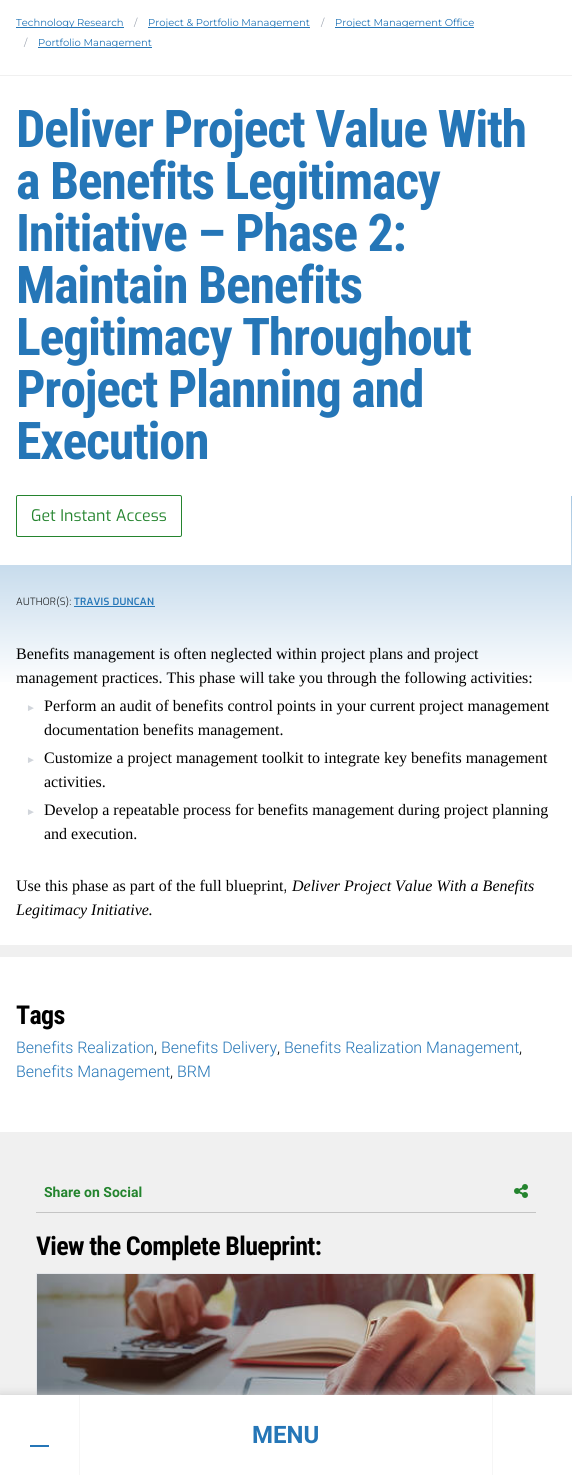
#include <cairo.h>
#include <math.h>
#include <stddef.h>

static cairo_t *ctx;

static void use_color(int r, int g, int b) {
    cairo_set_source_rgb(ctx, r / 255.0, g / 255.0, b / 255.0);
}

static void spaced_text(double x, double y, const char *s, double letter, double word) {
    cairo_move_to(ctx, x, y);
    while (*s) {
        char ch[5] = {0};
        int n = 0;
        do ch[n++] = *s++; while ((*s & 0xC0) == 0x80);
        cairo_show_text(ctx, ch);
        cairo_rel_move_to(ctx, letter + word * (*ch == ' '), 0);
    }
}

static void round_rect(double x, double y, double w, double h, double r) {
    cairo_new_sub_path(ctx);
    cairo_arc(ctx, x + w - r, y + h - r, r, 0, M_PI / 2);
    cairo_arc(ctx, x + r, y + h - r, r, M_PI / 2, M_PI);
    cairo_arc(ctx, x + r, y + r, r, M_PI, 1.5 * M_PI);
    cairo_arc(ctx, x + w - r, y + r, r, 1.5 * M_PI, 2 * M_PI);
    cairo_close_path(ctx);
}

static void shadow(double x, double y, double w, double h, double r, double blur, double alpha) {
    cairo_push_group_with_content(ctx, CAIRO_CONTENT_ALPHA);
    cairo_set_operator(ctx, CAIRO_OPERATOR_SOURCE);
    for (int i = 15; i >= -15 && fmin(w, h) + blur * i / 3 > 0; i -= 2) {
        double e = blur * i / 6;
        cairo_set_source_rgba(ctx, 0, 0, 0, alpha * erfc((i - 1) / 8.5) / 2);
        round_rect(x - e, y - e, w + 2 * e, h + 2 * e, fmax(0, fmin(r + e + blur * .6, fmin(w, h) / 2 + e)));
        cairo_fill(ctx);
    }
    cairo_pattern_t *soft = cairo_pop_group(ctx);
    cairo_mask(ctx, soft);
    cairo_pattern_destroy(soft);
}

static void picture(const char *path, double x, double y, double w, double h) {
    cairo_surface_t *image = cairo_image_surface_create_from_png(path);
    cairo_save(ctx);
    cairo_set_source_surface(ctx, image, x, y);
    cairo_rectangle(ctx, x, y, w, h);
    cairo_fill(ctx);
    cairo_restore(ctx);
    cairo_surface_destroy(image);
}

int main(void) {
    cairo_surface_t *surface = cairo_image_surface_create(CAIRO_FORMAT_RGB24, 572, 1475);
    ctx = cairo_create(surface);
    cairo_font_options_t *options = cairo_font_options_create();
    cairo_font_options_set_hint_metrics(options, CAIRO_HINT_METRICS_OFF);
    cairo_font_options_set_hint_style(options, CAIRO_HINT_STYLE_NONE);
    cairo_set_font_options(ctx, options);
    cairo_set_miter_limit(ctx, 4);
    cairo_pattern_t *gradient;
    use_color(255, 255, 255);
    cairo_paint(ctx);
    use_color(240, 240, 240);
    cairo_rectangle(ctx, 0, 75, 572, 1);
    cairo_fill(ctx);
    use_color(37, 118, 183);
    cairo_rectangle(ctx, 16, 27, 108, 1);
    cairo_fill(ctx);
    cairo_select_font_face(ctx, "Montserrat Thin", CAIRO_FONT_SLANT_NORMAL, CAIRO_FONT_WEIGHT_NORMAL);
    cairo_set_font_size(ctx, 10);
    cairo_move_to(ctx, 16, 26);
    cairo_show_text(ctx, "Technology Research");
    use_color(156, 163, 175);
    cairo_move_to(ctx, 134, 26);
    cairo_show_text(ctx, "/");
    use_color(37, 118, 183);
    cairo_rectangle(ctx, 148, 27, 162, 1);
    cairo_fill(ctx);
    cairo_move_to(ctx, 148, 26);
    cairo_show_text(ctx, "Project & Portfolio Management");
    use_color(156, 163, 175);
    cairo_move_to(ctx, 321, 26);
    cairo_show_text(ctx, "/");
    use_color(37, 118, 183);
    cairo_rectangle(ctx, 335, 27, 139, 1);
    cairo_fill(ctx);
    cairo_move_to(ctx, 335, 26);
    cairo_show_text(ctx, "Project Management Office");
    use_color(156, 163, 175);
    cairo_move_to(ctx, 24, 46);
    cairo_show_text(ctx, "/");
    use_color(37, 118, 183);
    cairo_rectangle(ctx, 38, 47, 114, 1);
    cairo_fill(ctx);
    cairo_move_to(ctx, 38, 46);
    cairo_show_text(ctx, "Portfolio Management");
    cairo_select_font_face(ctx, "Roboto Condensed", CAIRO_FONT_SLANT_NORMAL, CAIRO_FONT_WEIGHT_BOLD);
    cairo_set_font_size(ctx, 52);
    spaced_text(16, 147, "Deliver Project Value With", -1.3, 0);
    spaced_text(16, 199, "a Benefits Legitimacy", -1.3, 0);
    spaced_text(16, 251, "Initiative – Phase 2:", -1.3, 0);
    spaced_text(16, 303, "Maintain Benefits", -1.3, 0);
    spaced_text(16, 355, "Legitimacy Throughout", -1.3, 0);
    spaced_text(16, 407, "Project Planning and", -1.3, 0);
    spaced_text(16, 459, "Execution", -1.3, 0);
    gradient = cairo_pattern_create_linear(286, 496, 286, 688);
    cairo_pattern_add_color_stop_rgba(gradient, 0, 0.659, 0.784, 0.886, 1);
    cairo_pattern_add_color_stop_rgba(gradient, 1, 1, 1, 1, 1);
    cairo_set_source(ctx, gradient);
    cairo_pattern_destroy(gradient);
    cairo_rectangle(ctx, 0, 496, 572, 186);
    cairo_fill(ctx);
    use_color(255, 255, 255);
    cairo_rectangle(ctx, 0, 496, 571, 69);
    cairo_fill(ctx);
    round_rect(16.5, 495.5, 165, 41, 1.5);
    use_color(36, 132, 46);
    cairo_set_line_width(ctx, 1);
    cairo_stroke(ctx);
    cairo_select_font_face(ctx, "Exo", CAIRO_FONT_SLANT_NORMAL, CAIRO_FONT_WEIGHT_NORMAL);
    cairo_set_font_size(ctx, 16);
    cairo_move_to(ctx, 31, 521);
    cairo_show_text(ctx, "Get Instant Access");
    cairo_select_font_face(ctx, "Exo Light", CAIRO_FONT_SLANT_NORMAL, CAIRO_FONT_WEIGHT_NORMAL);
    cairo_set_font_size(ctx, 10);
    use_color(0, 0, 0);
    spaced_text(16, 605, "AUTHOR(S):", 0.25, 0);
    cairo_select_font_face(ctx, "Exo SemiBold", CAIRO_FONT_SLANT_NORMAL, CAIRO_FONT_WEIGHT_NORMAL);
    use_color(37, 118, 183);
    spaced_text(74, 605, "TRAVIS DUNCAN", 0.25, 0);
    cairo_rectangle(ctx, 74, 606, 81, 1);
    cairo_fill(ctx);
    cairo_select_font_face(ctx, "Liberation Serif", CAIRO_FONT_SLANT_NORMAL, CAIRO_FONT_WEIGHT_NORMAL);
    cairo_set_font_size(ctx, 16);
    use_color(0, 0, 0);
    cairo_move_to(ctx, 16, 659);
    cairo_show_text(ctx, "Benefits management is often neglected within project plans and project");
    cairo_move_to(ctx, 16, 683);
    cairo_show_text(ctx, "management practices. This phase will take you through the following activities:");
    cairo_set_font_size(ctx, 10);
    use_color(209, 213, 219);
    cairo_move_to(ctx, 26, 711);
    cairo_show_text(ctx, "►");
    cairo_set_font_size(ctx, 16);
    use_color(0, 0, 0);
    cairo_move_to(ctx, 44, 711);
    cairo_show_text(ctx, "Perform an audit of benefits control points in your current project management");
    cairo_move_to(ctx, 44, 735);
    cairo_show_text(ctx, "documentation benefits management.");
    cairo_set_font_size(ctx, 10);
    use_color(209, 213, 219);
    cairo_move_to(ctx, 26, 763);
    cairo_show_text(ctx, "►");
    cairo_set_font_size(ctx, 16);
    use_color(0, 0, 0);
    cairo_move_to(ctx, 44, 763);
    cairo_show_text(ctx, "Customize a project management toolkit to integrate key benefits management");
    cairo_move_to(ctx, 44, 787);
    cairo_show_text(ctx, "activities.");
    cairo_set_font_size(ctx, 10);
    use_color(209, 213, 219);
    cairo_move_to(ctx, 26, 815);
    cairo_show_text(ctx, "►");
    cairo_set_font_size(ctx, 16);
    use_color(0, 0, 0);
    cairo_move_to(ctx, 44, 815);
    cairo_show_text(ctx, "Develop a repeatable process for benefits management during project planning");
    cairo_move_to(ctx, 44, 839);
    cairo_show_text(ctx, "and execution.");
    cairo_move_to(ctx, 16, 891);
    cairo_show_text(ctx, "Use this phase as part of the full blueprint,");
    cairo_select_font_face(ctx, "Liberation Serif", CAIRO_FONT_SLANT_ITALIC, CAIRO_FONT_WEIGHT_NORMAL);
    cairo_move_to(ctx, 292, 891);
    cairo_show_text(ctx, "Deliver Project Value With a Benefits");
    cairo_move_to(ctx, 16, 915);
    cairo_show_text(ctx, "Legitimacy Initiative.");
    use_color(240, 240, 240);
    cairo_rectangle(ctx, 0, 945, 572, 12);
    cairo_fill(ctx);
    cairo_select_font_face(ctx, "Roboto Condensed", CAIRO_FONT_SLANT_NORMAL, CAIRO_FONT_WEIGHT_BOLD);
    cairo_set_font_size(ctx, 26);
    use_color(0, 0, 0);
    spaced_text(16, 1024, "Tags", -0.65, 0);
    cairo_select_font_face(ctx, "Roboto Light", CAIRO_FONT_SLANT_NORMAL, CAIRO_FONT_WEIGHT_NORMAL);
    cairo_set_font_size(ctx, 16);
    use_color(37, 118, 183);
    cairo_move_to(ctx, 16, 1053);
    cairo_show_text(ctx, "Benefits Realization");
    use_color(0, 0, 0);
    cairo_move_to(ctx, 154, 1053);
    cairo_show_text(ctx, ",");
    use_color(37, 118, 183);
    cairo_move_to(ctx, 161, 1053);
    cairo_show_text(ctx, "Benefits Delivery");
    use_color(0, 0, 0);
    cairo_move_to(ctx, 277, 1053);
    cairo_show_text(ctx, ",");
    use_color(37, 118, 183);
    cairo_move_to(ctx, 284, 1053);
    cairo_show_text(ctx, "Benefits Realization Management");
    use_color(0, 0, 0);
    cairo_move_to(ctx, 519, 1053);
    cairo_show_text(ctx, ",");
    use_color(37, 118, 183);
    cairo_move_to(ctx, 16, 1077);
    cairo_show_text(ctx, "Benefits Management");
    cairo_move_to(ctx, 177, 1077);
    cairo_show_text(ctx, "BRM");
    use_color(0, 0, 0);
    cairo_move_to(ctx, 170, 1077);
    cairo_show_text(ctx, ",");
    use_color(240, 240, 240);
    cairo_rectangle(ctx, 0, 1132, 572, 263);
    cairo_fill(ctx);
    use_color(196, 196, 196);
    cairo_rectangle(ctx, 36, 1212, 500, 1);
    cairo_fill(ctx);
    cairo_select_font_face(ctx, "Roboto", CAIRO_FONT_SLANT_NORMAL, CAIRO_FONT_WEIGHT_BOLD);
    cairo_set_font_size(ctx, 14);
    use_color(36, 132, 46);
    cairo_move_to(ctx, 44, 1197);
    cairo_show_text(ctx, "Share on Social");
    picture("img1.png", 514, 1184, 14, 14);
    cairo_select_font_face(ctx, "Roboto Condensed", CAIRO_FONT_SLANT_NORMAL, CAIRO_FONT_WEIGHT_BOLD);
    cairo_set_font_size(ctx, 26);
    use_color(0, 0, 0);
    spaced_text(36, 1255, "View the Complete Blueprint:", -0.65, 0);
    cairo_rectangle(ctx, 36.5, 1273.5, 499, 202);
    use_color(229, 231, 235);
    cairo_stroke(ctx);
    picture("img2.png", 37, 1274, 498, 121);
    use_color(204, 204, 204);
    shadow(0, 1395, 572, 80, 0, 5, 1);
    use_color(255, 255, 255);
    cairo_rectangle(ctx, 0, 1395, 572, 80);
    cairo_fill(ctx);
    use_color(246, 246, 246);
    cairo_rectangle(ctx, 79, 1395, 1, 80);
    cairo_fill(ctx);
    use_color(37, 118, 183);
    cairo_rectangle(ctx, 30, 1445, 19, 2);
    cairo_fill(ctx);
    cairo_select_font_face(ctx, "Roboto", CAIRO_FONT_SLANT_NORMAL, CAIRO_FONT_WEIGHT_BOLD);
    cairo_set_font_size(ctx, 24);
    cairo_move_to(ctx, 252, 1443);
    cairo_show_text(ctx, "MENU");
    use_color(246, 246, 246);
    cairo_rectangle(ctx, 492, 1395, 1, 80);
    cairo_fill(ctx);
    cairo_surface_write_to_png(surface, "result.png");
    cairo_font_options_destroy(options);
    cairo_destroy(ctx);
    cairo_surface_destroy(surface);
    return 0;
}
